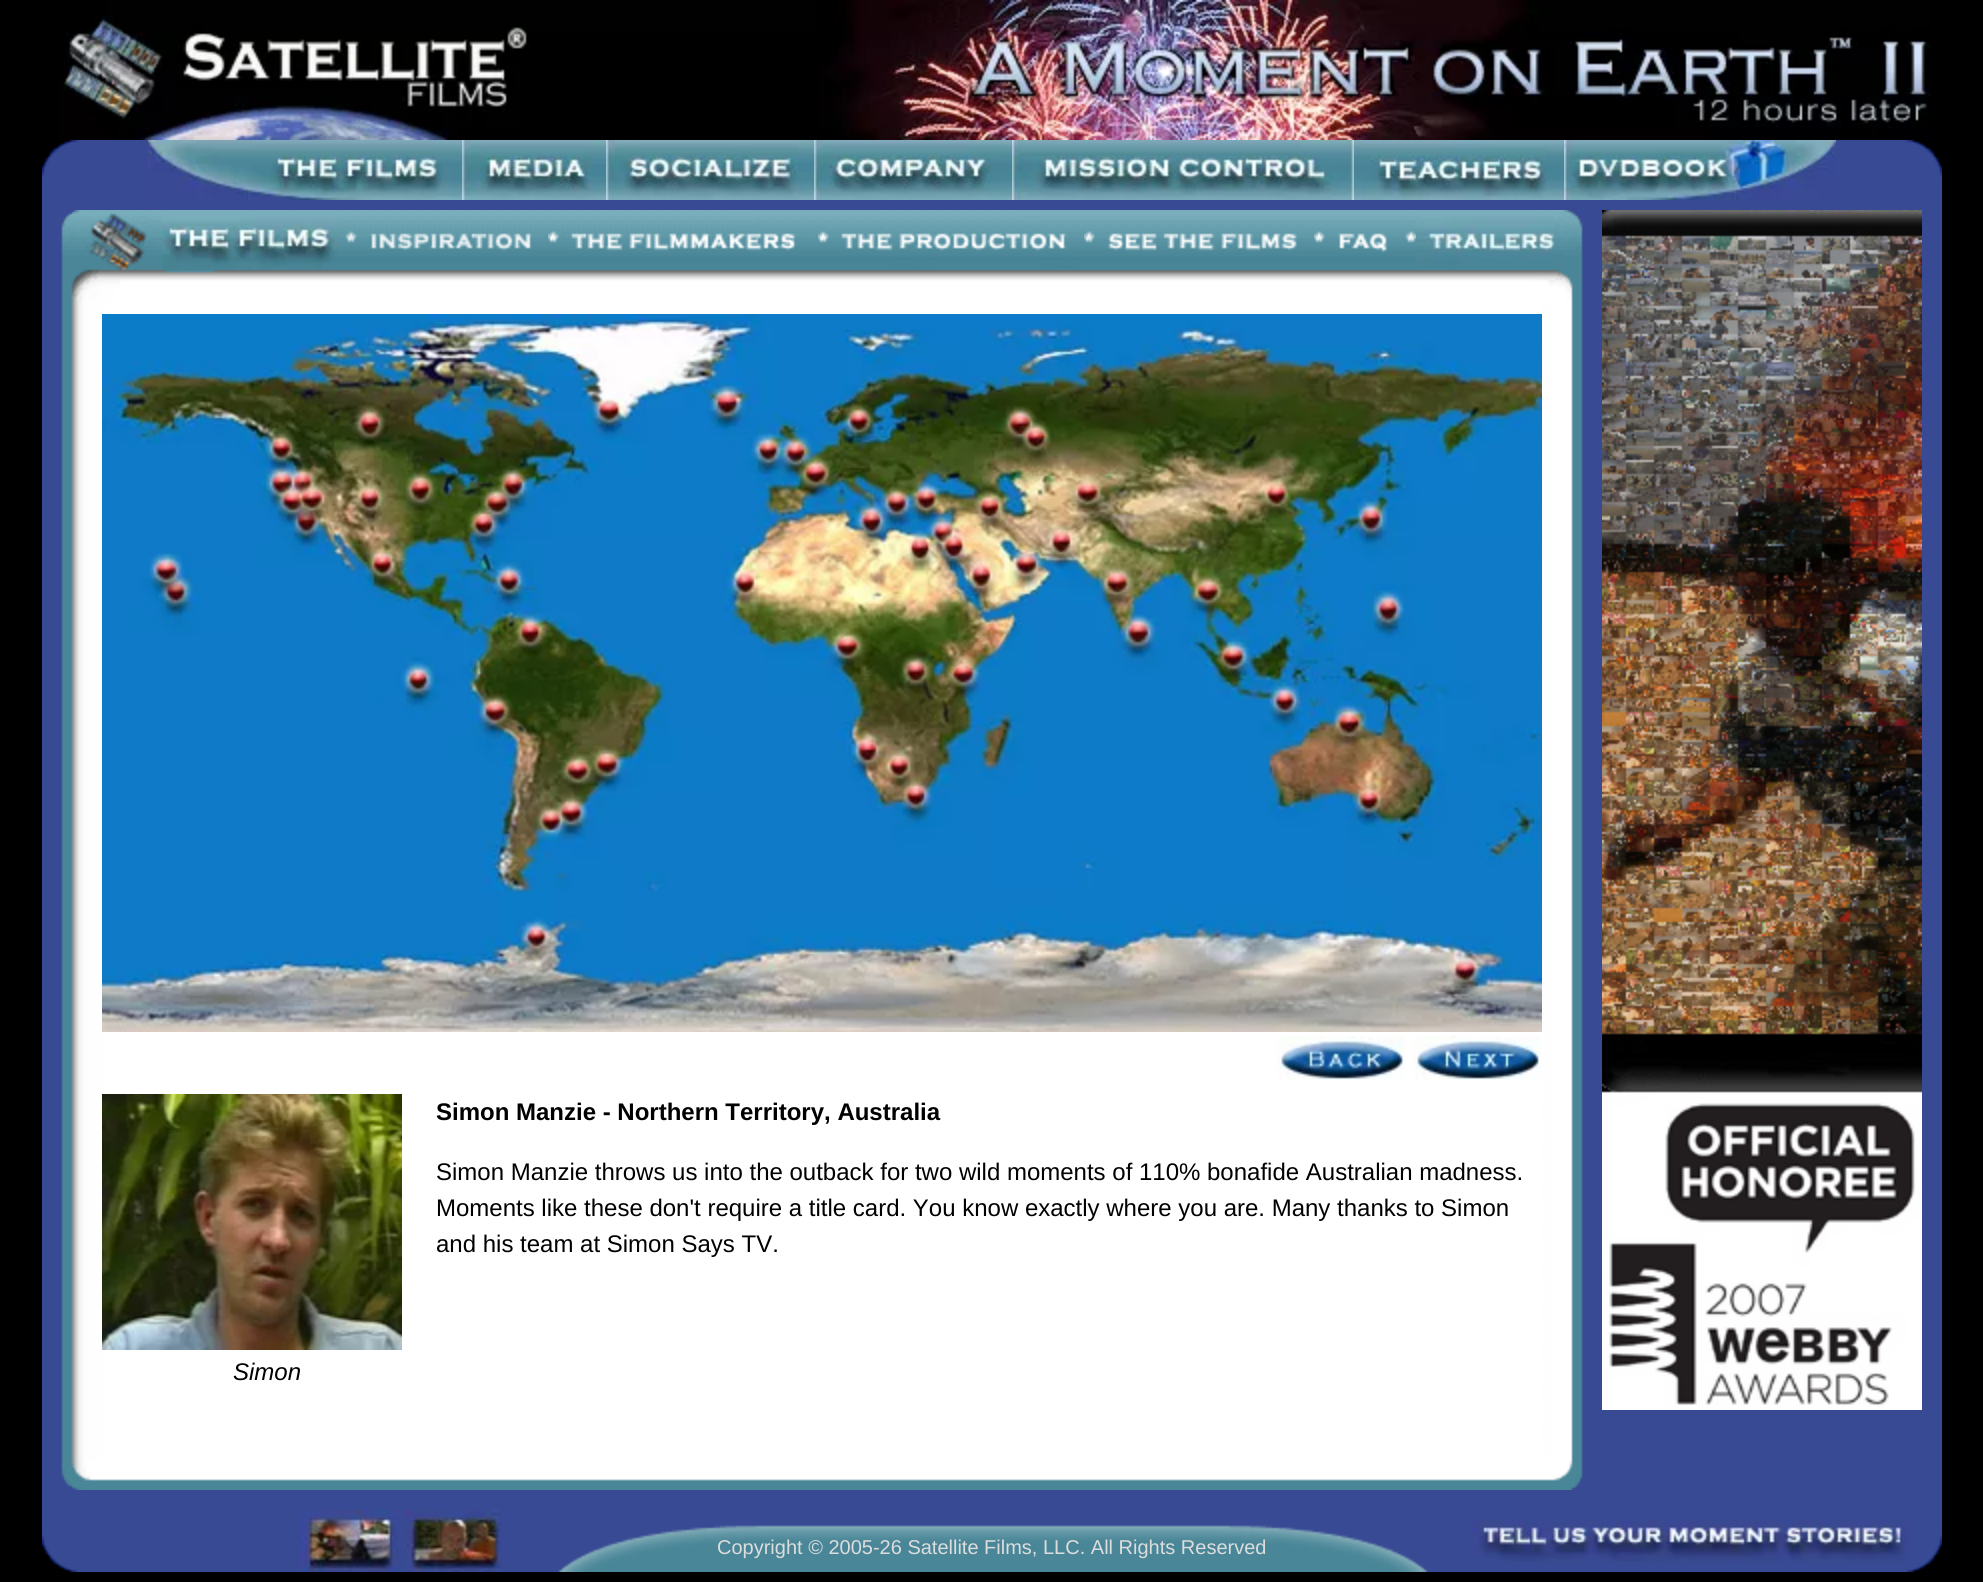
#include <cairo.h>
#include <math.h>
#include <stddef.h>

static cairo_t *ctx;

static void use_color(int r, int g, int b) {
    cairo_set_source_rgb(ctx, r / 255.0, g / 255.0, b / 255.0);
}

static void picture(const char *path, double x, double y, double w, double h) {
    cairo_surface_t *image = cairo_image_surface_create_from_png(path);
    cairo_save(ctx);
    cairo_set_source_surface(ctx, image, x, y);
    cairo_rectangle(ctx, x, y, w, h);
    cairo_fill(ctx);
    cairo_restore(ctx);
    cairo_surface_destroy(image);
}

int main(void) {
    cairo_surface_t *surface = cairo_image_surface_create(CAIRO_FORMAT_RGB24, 1983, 1582);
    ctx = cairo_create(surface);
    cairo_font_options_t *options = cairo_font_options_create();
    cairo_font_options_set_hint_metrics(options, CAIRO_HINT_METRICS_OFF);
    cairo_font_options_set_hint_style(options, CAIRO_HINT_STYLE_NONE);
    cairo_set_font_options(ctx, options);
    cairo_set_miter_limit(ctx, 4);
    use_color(0, 0, 0);
    cairo_paint(ctx);
    picture("img1.png", 58, 0, 1873, 140);
    use_color(57, 74, 148);
    cairo_rectangle(ctx, 42, 177, 1900, 1358);
    cairo_fill(ctx);
    picture("img2.png", 42, 140, 1900, 37);
    picture("img3.png", 42, 1535, 1900, 37);
    picture("img4.png", 148, 140, 314, 60);
    picture("img5.png", 462, 140, 144, 60);
    picture("img6.png", 606, 140, 208, 60);
    picture("img7.png", 814, 140, 198, 60);
    picture("img8.png", 1012, 140, 342, 60);
    picture("img9.png", 1354, 140, 210, 60);
    picture("img10.png", 1564, 140, 272, 60);
    picture("img11.png", 61, 300, 1522, 1160);
    picture("img12.png", 61, 210, 1522, 90);
    picture("img13.png", 162, 216, 176, 54);
    picture("img14.png", 338, 231, 210, 39);
    picture("img15.png", 548, 231, 270, 39);
    picture("img16.png", 818, 231, 266, 39);
    picture("img17.png", 1084, 231, 230, 39);
    picture("img18.png", 1314, 225, 102, 45);
    picture("img19.png", 1416, 216, 138, 54);
    picture("img20.png", 102, 314, 1440, 718);
    picture("img21.png", 1276, 1036, 129, 44);
    picture("img22.png", 1412, 1036, 129, 44);
    picture("img23.png", 102, 1094, 300, 256);
    cairo_select_font_face(ctx, "Liberation Sans", CAIRO_FONT_SLANT_NORMAL, CAIRO_FONT_WEIGHT_BOLD);
    cairo_set_font_size(ctx, 24);
    use_color(0, 0, 0);
    cairo_move_to(ctx, 436, 1120);
    cairo_show_text(ctx, "Simon Manzie - Northern Territory, Australia");
    cairo_select_font_face(ctx, "Liberation Sans", CAIRO_FONT_SLANT_NORMAL, CAIRO_FONT_WEIGHT_NORMAL);
    cairo_move_to(ctx, 436, 1180);
    cairo_show_text(ctx, "Simon Manzie throws us into the outback for two wild moments of 110% bonafide Australian madness.");
    cairo_move_to(ctx, 436, 1216);
    cairo_show_text(ctx, "Moments like these don't require a title card. You know exactly where you are. Many thanks to Simon");
    cairo_move_to(ctx, 436, 1252);
    cairo_show_text(ctx, "and his team at Simon Says TV.");
    cairo_select_font_face(ctx, "Liberation Sans", CAIRO_FONT_SLANT_ITALIC, CAIRO_FONT_WEIGHT_NORMAL);
    cairo_move_to(ctx, 233, 1380);
    cairo_show_text(ctx, "Simon");
    picture("img24.png", 61, 1460, 1522, 30);
    picture("img25.png", 1602, 210, 320, 1200);
    picture("img26.png", 558, 1525, 870, 47);
    picture("img27.png", 302, 1510, 96, 62);
    picture("img28.png", 404, 1510, 98, 62);
    cairo_select_font_face(ctx, "Liberation Sans", CAIRO_FONT_SLANT_NORMAL, CAIRO_FONT_WEIGHT_NORMAL);
    cairo_set_font_size(ctx, 20);
    use_color(221, 221, 221);
    cairo_move_to(ctx, 717, 1554);
    cairo_show_text(ctx, "Copyright © 2005-26 Satellite Films, LLC. All Rights Reserved");
    picture("img29.png", 1472, 1519, 437, 43);
    cairo_surface_write_to_png(surface, "result.png");
    cairo_font_options_destroy(options);
    cairo_destroy(ctx);
    cairo_surface_destroy(surface);
    return 0;
}
